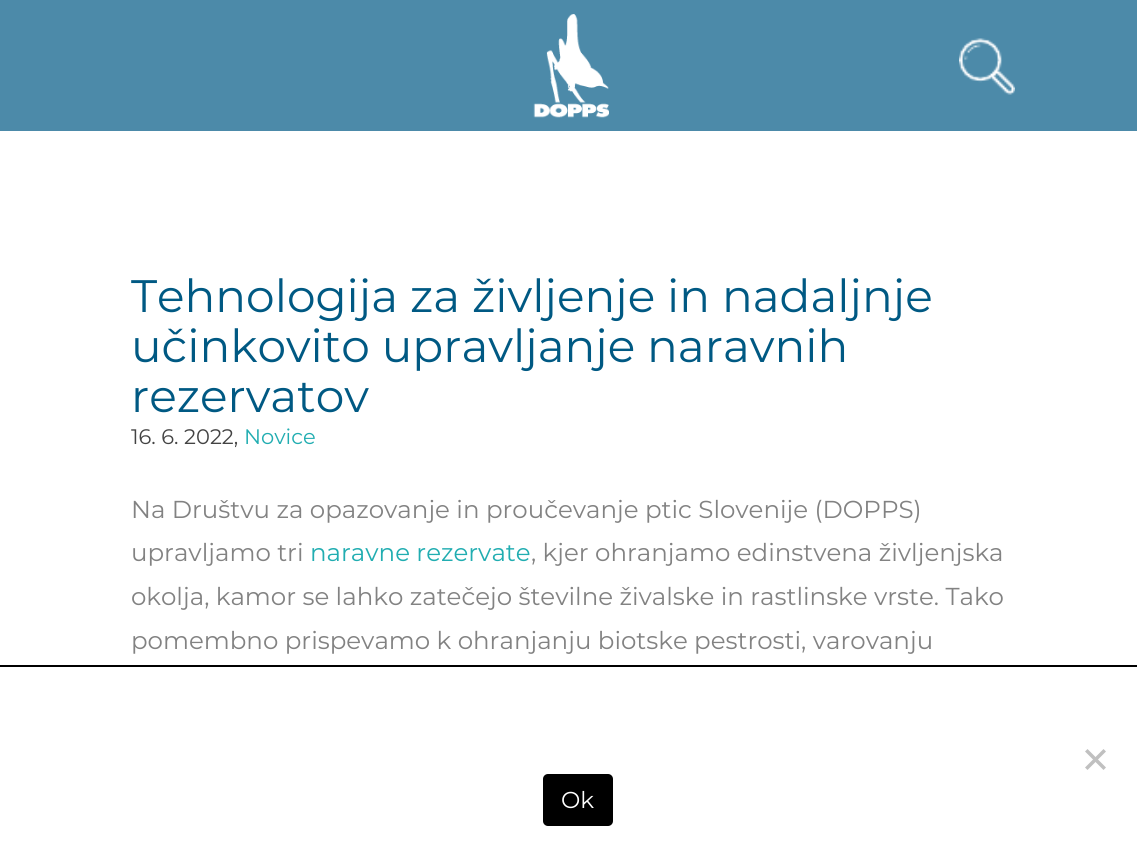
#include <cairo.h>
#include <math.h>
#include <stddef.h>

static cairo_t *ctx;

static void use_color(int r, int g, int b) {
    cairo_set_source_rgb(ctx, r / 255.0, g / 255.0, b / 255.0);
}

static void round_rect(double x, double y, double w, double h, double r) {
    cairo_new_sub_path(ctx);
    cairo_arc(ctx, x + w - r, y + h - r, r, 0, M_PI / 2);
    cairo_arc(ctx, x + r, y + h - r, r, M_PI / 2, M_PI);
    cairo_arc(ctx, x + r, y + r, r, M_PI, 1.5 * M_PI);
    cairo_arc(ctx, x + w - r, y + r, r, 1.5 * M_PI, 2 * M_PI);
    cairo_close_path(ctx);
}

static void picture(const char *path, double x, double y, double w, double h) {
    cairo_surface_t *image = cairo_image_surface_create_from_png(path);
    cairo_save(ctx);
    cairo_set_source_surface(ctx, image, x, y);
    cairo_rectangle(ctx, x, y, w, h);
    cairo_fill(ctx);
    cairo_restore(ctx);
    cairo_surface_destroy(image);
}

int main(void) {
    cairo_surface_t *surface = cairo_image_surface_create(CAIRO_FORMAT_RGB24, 1137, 851);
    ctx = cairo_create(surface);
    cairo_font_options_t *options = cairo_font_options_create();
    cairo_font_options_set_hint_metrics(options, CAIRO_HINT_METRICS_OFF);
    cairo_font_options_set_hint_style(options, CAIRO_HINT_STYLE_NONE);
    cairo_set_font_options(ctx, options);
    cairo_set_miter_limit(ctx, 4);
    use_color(255, 255, 255);
    cairo_paint(ctx);
    use_color(76, 138, 169);
    cairo_rectangle(ctx, 0, 0, 1137, 131);
    cairo_fill(ctx);
    picture("img1.png", 533, 14, 76, 104);
    picture("img2.png", 959, 38, 56, 57);
    cairo_select_font_face(ctx, "Montserrat", CAIRO_FONT_SLANT_NORMAL, CAIRO_FONT_WEIGHT_NORMAL);
    cairo_set_font_size(ctx, 45.5);
    use_color(0, 89, 131);
    cairo_move_to(ctx, 131, 312);
    cairo_show_text(ctx, "Tehnologija za življenje in nadaljnje");
    cairo_move_to(ctx, 131, 362);
    cairo_show_text(ctx, "učinkovito upravljanje naravnih");
    cairo_move_to(ctx, 131, 412);
    cairo_show_text(ctx, "rezervatov");
    cairo_set_font_size(ctx, 21);
    use_color(67, 67, 67);
    cairo_move_to(ctx, 131, 444);
    cairo_show_text(ctx, "16. 6. 2022,");
    use_color(33, 173, 177);
    cairo_move_to(ctx, 244, 444);
    cairo_show_text(ctx, "Novice");
    cairo_set_font_size(ctx, 24.5);
    use_color(130, 130, 130);
    cairo_move_to(ctx, 131, 518);
    cairo_show_text(ctx, "Na Društvu za opazovanje in proučevanje ptic Slovenije (DOPPS)");
    cairo_move_to(ctx, 131, 561);
    cairo_show_text(ctx, "upravljamo tri");
    use_color(33, 173, 177);
    cairo_move_to(ctx, 310, 561);
    cairo_show_text(ctx, "naravne rezervate");
    use_color(130, 130, 130);
    cairo_move_to(ctx, 531, 561);
    cairo_show_text(ctx, ", kjer ohranjamo edinstvena življenjska");
    cairo_move_to(ctx, 131, 605);
    cairo_show_text(ctx, "okolja, kamor se lahko zatečejo številne živalske in rastlinske vrste. Tako");
    cairo_move_to(ctx, 131, 649);
    cairo_show_text(ctx, "pomembno prispevamo k ohranjanju biotske pestrosti, varovanju");
    use_color(0, 0, 0);
    cairo_rectangle(ctx, 0, 665, 1137, 2);
    cairo_fill(ctx);
    use_color(192, 192, 192);
    cairo_new_path(ctx);
    cairo_move_to(ctx, 1103.5, 749);
    cairo_line_to(ctx, 1106, 751.5);
    cairo_line_to(ctx, 1087.5, 770);
    cairo_line_to(ctx, 1085, 767.5);
    cairo_close_path(ctx);
    cairo_fill(ctx);
    cairo_new_path(ctx);
    cairo_move_to(ctx, 1085, 751.5);
    cairo_line_to(ctx, 1087.5, 749);
    cairo_line_to(ctx, 1106, 767.5);
    cairo_line_to(ctx, 1103.5, 770);
    cairo_close_path(ctx);
    cairo_fill(ctx);
    use_color(0, 0, 0);
    round_rect(543, 774, 70, 52, 5);
    cairo_fill(ctx);
    cairo_set_font_size(ctx, 23);
    use_color(255, 255, 255);
    cairo_move_to(ctx, 561, 808);
    cairo_show_text(ctx, "Ok");
    cairo_surface_write_to_png(surface, "result.png");
    cairo_font_options_destroy(options);
    cairo_destroy(ctx);
    cairo_surface_destroy(surface);
    return 0;
}
